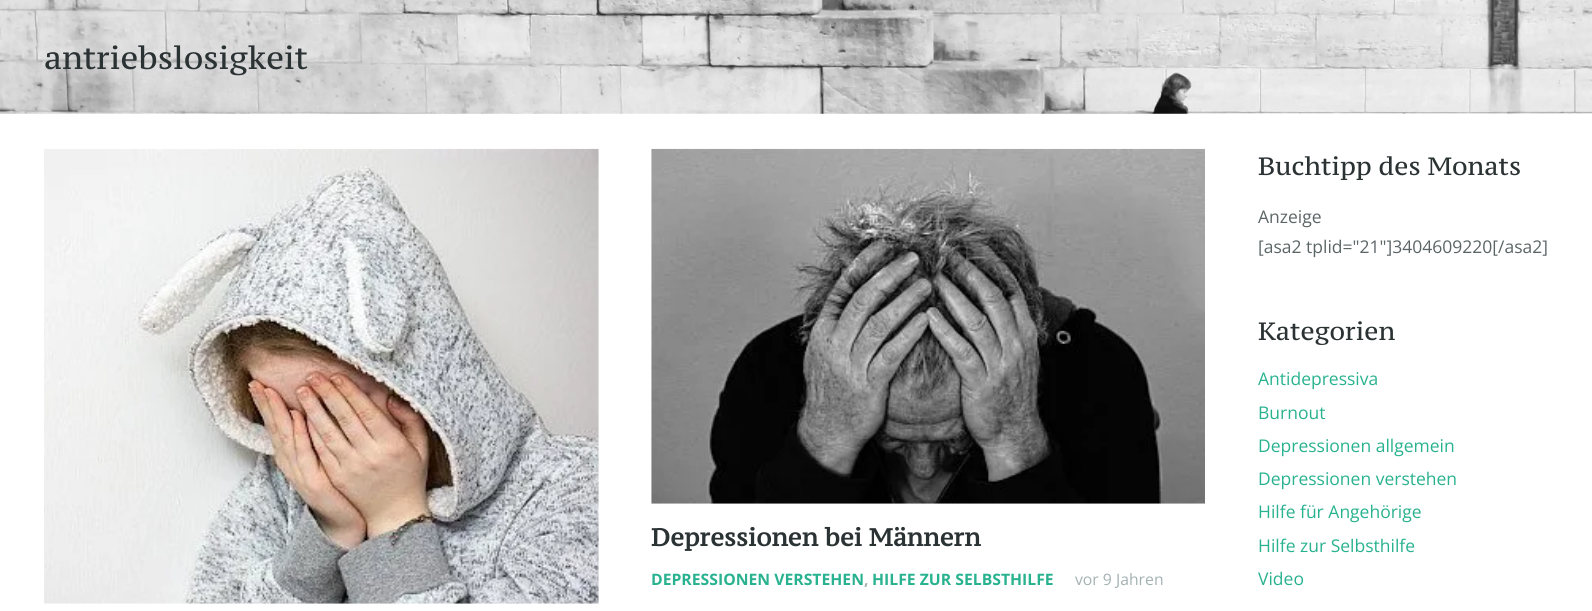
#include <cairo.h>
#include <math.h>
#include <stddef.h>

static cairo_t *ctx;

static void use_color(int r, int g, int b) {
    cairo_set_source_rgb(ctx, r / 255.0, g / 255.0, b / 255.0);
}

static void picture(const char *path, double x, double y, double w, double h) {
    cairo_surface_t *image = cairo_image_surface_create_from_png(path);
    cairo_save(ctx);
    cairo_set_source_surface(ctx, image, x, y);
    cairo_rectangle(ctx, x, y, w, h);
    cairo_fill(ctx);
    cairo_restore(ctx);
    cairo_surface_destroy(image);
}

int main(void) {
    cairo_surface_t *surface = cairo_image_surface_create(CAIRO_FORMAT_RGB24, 1592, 611);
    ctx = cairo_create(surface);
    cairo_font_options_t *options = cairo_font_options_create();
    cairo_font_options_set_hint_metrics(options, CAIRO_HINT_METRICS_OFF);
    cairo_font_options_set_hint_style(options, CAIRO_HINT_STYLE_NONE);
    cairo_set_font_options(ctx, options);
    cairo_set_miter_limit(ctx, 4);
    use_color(255, 255, 255);
    cairo_paint(ctx);
    picture("img1.png", 0, 0, 1592, 114);
    cairo_select_font_face(ctx, "PT Serif Caption", CAIRO_FONT_SLANT_NORMAL, CAIRO_FONT_WEIGHT_NORMAL);
    cairo_set_font_size(ctx, 31.5);
    use_color(43, 50, 51);
    cairo_move_to(ctx, 44, 69);
    cairo_show_text(ctx, "antriebslosigkeit");
    picture("img2.png", 44, 148, 555, 456);
    picture("img3.png", 651, 148, 554, 356);
    cairo_select_font_face(ctx, "PT Serif Caption", CAIRO_FONT_SLANT_NORMAL, CAIRO_FONT_WEIGHT_BOLD);
    cairo_set_font_size(ctx, 24.5);
    cairo_move_to(ctx, 651, 546);
    cairo_show_text(ctx, "Depressionen bei Männern");
    cairo_select_font_face(ctx, "Open Sans", CAIRO_FONT_SLANT_NORMAL, CAIRO_FONT_WEIGHT_BOLD);
    cairo_set_font_size(ctx, 15.75);
    use_color(41, 178, 143);
    cairo_move_to(ctx, 651, 585);
    cairo_show_text(ctx, "DEPRESSIONEN VERSTEHEN");
    use_color(164, 177, 179);
    cairo_move_to(ctx, 864, 585);
    cairo_show_text(ctx, ",");
    use_color(41, 178, 143);
    cairo_move_to(ctx, 872, 585);
    cairo_show_text(ctx, "HILFE ZUR SELBSTHILFE");
    cairo_select_font_face(ctx, "Open Sans", CAIRO_FONT_SLANT_NORMAL, CAIRO_FONT_WEIGHT_NORMAL);
    use_color(164, 177, 179);
    cairo_move_to(ctx, 1075, 585);
    cairo_show_text(ctx, "vor 9 Jahren");
    cairo_select_font_face(ctx, "PT Serif Caption", CAIRO_FONT_SLANT_NORMAL, CAIRO_FONT_WEIGHT_NORMAL);
    cairo_set_font_size(ctx, 25);
    use_color(43, 50, 51);
    cairo_move_to(ctx, 1258, 175);
    cairo_show_text(ctx, "Buchtipp des Monats");
    cairo_select_font_face(ctx, "Open Sans", CAIRO_FONT_SLANT_NORMAL, CAIRO_FONT_WEIGHT_NORMAL);
    cairo_set_font_size(ctx, 17.5);
    use_color(92, 101, 102);
    cairo_move_to(ctx, 1258, 223);
    cairo_show_text(ctx, "Anzeige");
    cairo_move_to(ctx, 1258, 253);
    cairo_show_text(ctx, "[asa2 tplid=\"21\"]3404609220[/asa2]");
    cairo_select_font_face(ctx, "PT Serif Caption", CAIRO_FONT_SLANT_NORMAL, CAIRO_FONT_WEIGHT_NORMAL);
    cairo_set_font_size(ctx, 25);
    use_color(43, 50, 51);
    cairo_move_to(ctx, 1258, 340);
    cairo_show_text(ctx, "Kategorien");
    cairo_select_font_face(ctx, "Open Sans", CAIRO_FONT_SLANT_NORMAL, CAIRO_FONT_WEIGHT_NORMAL);
    cairo_set_font_size(ctx, 17.5);
    use_color(41, 178, 143);
    cairo_move_to(ctx, 1258, 385);
    cairo_show_text(ctx, "Antidepressiva");
    cairo_move_to(ctx, 1258, 419);
    cairo_show_text(ctx, "Burnout");
    cairo_move_to(ctx, 1258, 452);
    cairo_show_text(ctx, "Depressionen allgemein");
    cairo_move_to(ctx, 1258, 485);
    cairo_show_text(ctx, "Depressionen verstehen");
    cairo_move_to(ctx, 1258, 518);
    cairo_show_text(ctx, "Hilfe für Angehörige");
    cairo_move_to(ctx, 1258, 552);
    cairo_show_text(ctx, "Hilfe zur Selbsthilfe");
    cairo_move_to(ctx, 1258, 585);
    cairo_show_text(ctx, "Video");
    cairo_surface_write_to_png(surface, "result.png");
    cairo_font_options_destroy(options);
    cairo_destroy(ctx);
    cairo_surface_destroy(surface);
    return 0;
}
